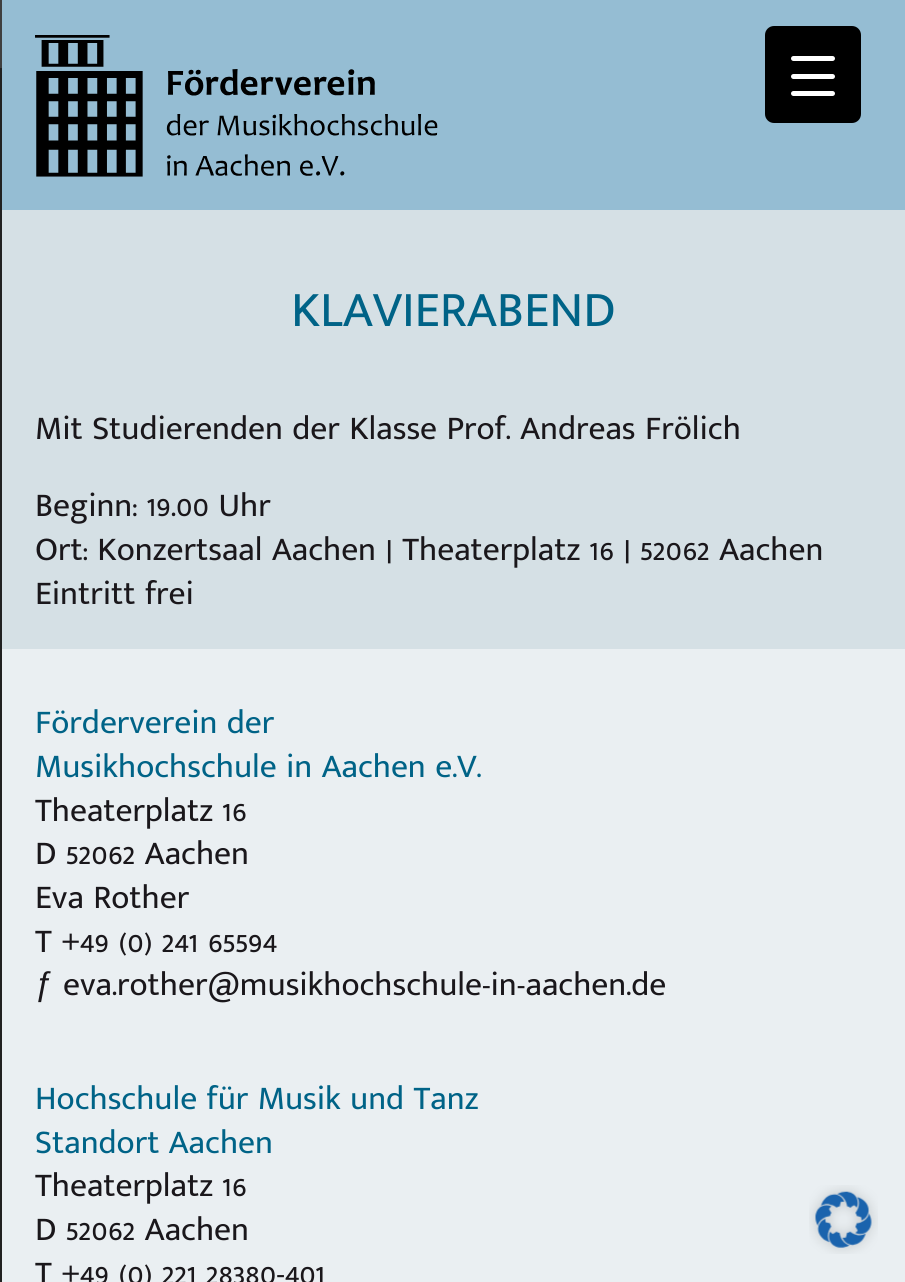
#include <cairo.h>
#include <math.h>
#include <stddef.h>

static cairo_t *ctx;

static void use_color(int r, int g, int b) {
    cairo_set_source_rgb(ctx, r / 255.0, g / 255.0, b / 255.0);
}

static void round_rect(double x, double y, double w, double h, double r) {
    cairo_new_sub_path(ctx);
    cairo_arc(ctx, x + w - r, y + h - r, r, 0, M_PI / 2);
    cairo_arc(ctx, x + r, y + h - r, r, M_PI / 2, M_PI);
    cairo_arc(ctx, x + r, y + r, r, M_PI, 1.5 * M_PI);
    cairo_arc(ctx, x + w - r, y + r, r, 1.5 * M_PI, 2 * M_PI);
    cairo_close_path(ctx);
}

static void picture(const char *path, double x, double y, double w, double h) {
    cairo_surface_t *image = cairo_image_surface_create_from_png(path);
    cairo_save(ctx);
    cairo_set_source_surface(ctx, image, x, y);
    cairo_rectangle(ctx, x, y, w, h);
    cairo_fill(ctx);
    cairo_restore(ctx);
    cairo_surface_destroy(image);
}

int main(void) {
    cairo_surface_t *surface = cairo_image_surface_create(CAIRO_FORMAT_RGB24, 905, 1282);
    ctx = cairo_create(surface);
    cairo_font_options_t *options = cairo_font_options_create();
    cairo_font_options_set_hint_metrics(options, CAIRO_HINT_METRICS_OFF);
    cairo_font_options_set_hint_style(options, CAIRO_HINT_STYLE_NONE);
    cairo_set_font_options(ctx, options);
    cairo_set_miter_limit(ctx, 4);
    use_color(213, 224, 229);
    cairo_paint(ctx);
    use_color(33, 33, 33);
    cairo_rectangle(ctx, 0, 70, 2, 1212);
    cairo_fill(ctx);
    use_color(63, 63, 63);
    cairo_rectangle(ctx, 0, 0, 2, 70);
    cairo_fill(ctx);
    use_color(33, 33, 33);
    cairo_rectangle(ctx, 0, 68, 2, 2);
    cairo_fill(ctx);
    use_color(149, 189, 211);
    cairo_rectangle(ctx, 2, 0, 903, 210);
    cairo_fill(ctx);
    picture("img1.png", 35, 35, 403, 142);
    use_color(0, 0, 0);
    round_rect(765, 26, 96, 97, 9);
    cairo_fill(ctx);
    use_color(255, 255, 255);
    round_rect(791, 74, 44, 5, 2.5);
    cairo_fill(ctx);
    round_rect(791, 56, 44, 5, 2.5);
    cairo_fill(ctx);
    round_rect(791, 91, 44, 5, 2.5);
    cairo_fill(ctx);
    cairo_select_font_face(ctx, "Mukta Malar", CAIRO_FONT_SLANT_NORMAL, CAIRO_FONT_WEIGHT_NORMAL);
    cairo_set_font_size(ctx, 50.5);
    use_color(0, 99, 135);
    cairo_move_to(ctx, 291, 326);
    cairo_show_text(ctx, "KLAVIERABEND");
    cairo_set_font_size(ctx, 33.6);
    use_color(26, 23, 27);
    cairo_move_to(ctx, 35, 439);
    cairo_show_text(ctx, "Mit Studierenden der Klasse Prof. Andreas Frölich");
    cairo_move_to(ctx, 35, 516);
    cairo_show_text(ctx, "Beginn: 19.00 Uhr");
    cairo_move_to(ctx, 35, 560);
    cairo_show_text(ctx, "Ort: Konzertsaal Aachen | Theaterplatz 16 | 52062 Aachen");
    cairo_move_to(ctx, 35, 604);
    cairo_show_text(ctx, "Eintritt frei");
    use_color(234, 239, 242);
    cairo_rectangle(ctx, 2, 649, 903, 633);
    cairo_fill(ctx);
    use_color(0, 99, 135);
    cairo_move_to(ctx, 35, 733);
    cairo_show_text(ctx, "Förderverein der");
    cairo_move_to(ctx, 35, 777);
    cairo_show_text(ctx, "Musikhochschule in Aachen e.V.");
    use_color(26, 23, 27);
    cairo_move_to(ctx, 35, 821);
    cairo_show_text(ctx, "Theaterplatz 16");
    cairo_move_to(ctx, 35, 864);
    cairo_show_text(ctx, "D 52062 Aachen");
    cairo_move_to(ctx, 35, 908);
    cairo_show_text(ctx, "Eva Rother");
    cairo_move_to(ctx, 35, 952);
    cairo_show_text(ctx, "T +49 (0) 241 65594");
    cairo_select_font_face(ctx, "Liberation Sans", CAIRO_FONT_SLANT_NORMAL, CAIRO_FONT_WEIGHT_NORMAL);
    cairo_move_to(ctx, 35, 995);
    cairo_show_text(ctx, "ƒ");
    cairo_select_font_face(ctx, "Mukta Malar", CAIRO_FONT_SLANT_NORMAL, CAIRO_FONT_WEIGHT_NORMAL);
    cairo_move_to(ctx, 63, 995);
    cairo_show_text(ctx, "eva.rother@musikhochschule-in-aachen.de");
    use_color(0, 99, 135);
    cairo_move_to(ctx, 35, 1109);
    cairo_show_text(ctx, "Hochschule für Musik und Tanz");
    cairo_move_to(ctx, 35, 1153);
    cairo_show_text(ctx, "Standort Aachen");
    use_color(26, 23, 27);
    cairo_move_to(ctx, 35, 1196);
    cairo_show_text(ctx, "Theaterplatz 16");
    cairo_move_to(ctx, 35, 1240);
    cairo_show_text(ctx, "D 52062 Aachen");
    cairo_move_to(ctx, 35, 1284);
    cairo_show_text(ctx, "T +49 (0) 221 28380-401");
    picture("img2.png", 809, 1185, 69, 69);
    cairo_surface_write_to_png(surface, "result.png");
    cairo_font_options_destroy(options);
    cairo_destroy(ctx);
    cairo_surface_destroy(surface);
    return 0;
}
